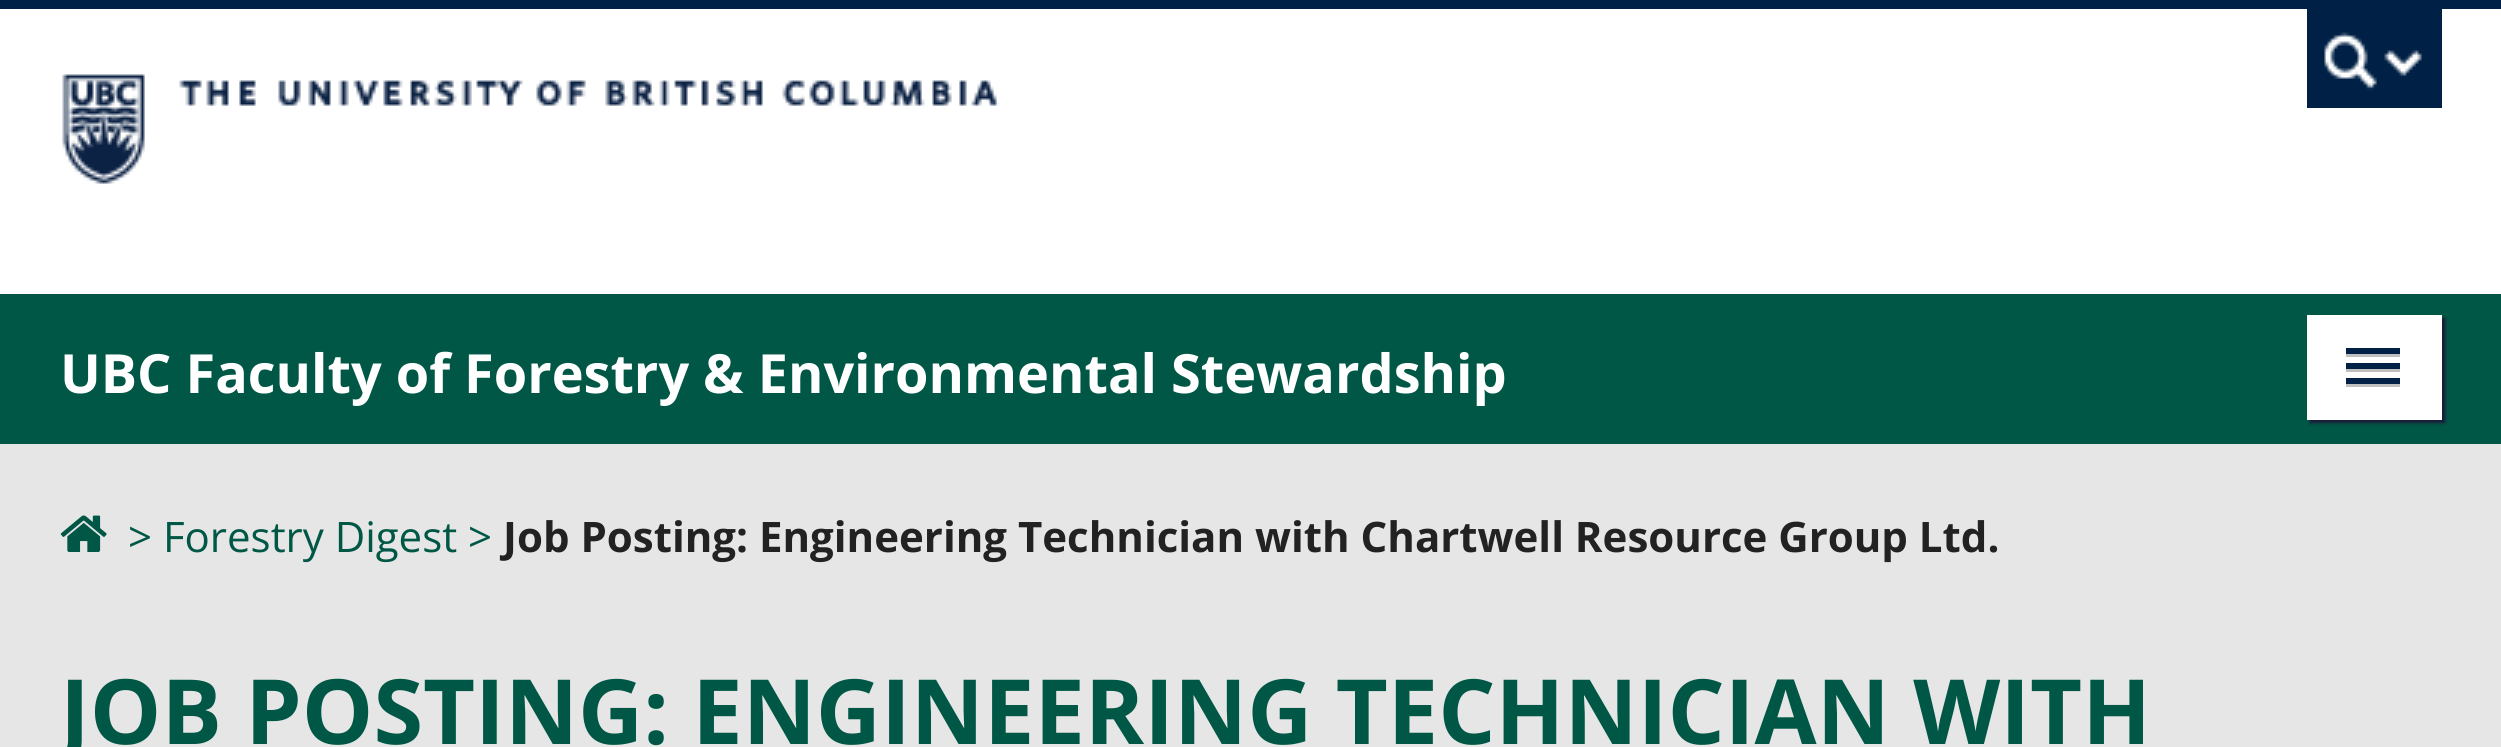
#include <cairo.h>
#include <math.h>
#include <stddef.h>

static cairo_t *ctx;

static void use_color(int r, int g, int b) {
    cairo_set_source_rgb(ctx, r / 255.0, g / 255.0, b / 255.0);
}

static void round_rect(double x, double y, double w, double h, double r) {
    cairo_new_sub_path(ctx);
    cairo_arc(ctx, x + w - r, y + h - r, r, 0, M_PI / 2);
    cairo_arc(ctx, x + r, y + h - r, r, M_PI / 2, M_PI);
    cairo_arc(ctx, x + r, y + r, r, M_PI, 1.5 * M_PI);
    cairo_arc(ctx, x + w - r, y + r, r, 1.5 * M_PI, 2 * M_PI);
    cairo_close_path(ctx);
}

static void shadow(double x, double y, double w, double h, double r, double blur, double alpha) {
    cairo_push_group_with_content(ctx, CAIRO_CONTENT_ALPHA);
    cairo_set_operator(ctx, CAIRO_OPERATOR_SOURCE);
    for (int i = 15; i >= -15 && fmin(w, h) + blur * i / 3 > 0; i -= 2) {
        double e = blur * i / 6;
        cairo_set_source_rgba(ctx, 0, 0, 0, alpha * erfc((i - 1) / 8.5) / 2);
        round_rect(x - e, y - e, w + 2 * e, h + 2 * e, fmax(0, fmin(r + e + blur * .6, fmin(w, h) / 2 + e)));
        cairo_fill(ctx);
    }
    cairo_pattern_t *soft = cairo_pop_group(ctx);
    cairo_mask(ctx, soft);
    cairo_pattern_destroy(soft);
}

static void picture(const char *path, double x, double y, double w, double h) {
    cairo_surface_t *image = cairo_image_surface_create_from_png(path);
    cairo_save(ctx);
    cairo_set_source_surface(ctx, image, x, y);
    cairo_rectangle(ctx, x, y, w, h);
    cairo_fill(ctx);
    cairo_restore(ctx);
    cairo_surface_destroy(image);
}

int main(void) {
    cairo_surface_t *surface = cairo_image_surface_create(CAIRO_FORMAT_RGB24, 2501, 747);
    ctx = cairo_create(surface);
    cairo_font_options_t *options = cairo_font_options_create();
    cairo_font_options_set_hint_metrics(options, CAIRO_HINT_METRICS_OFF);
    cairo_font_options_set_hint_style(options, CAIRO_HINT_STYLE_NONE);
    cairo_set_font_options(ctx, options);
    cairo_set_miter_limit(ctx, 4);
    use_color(230, 230, 230);
    cairo_paint(ctx);
    use_color(255, 255, 255);
    cairo_rectangle(ctx, 0, 9, 2501, 285);
    cairo_fill(ctx);
    use_color(0, 33, 69);
    cairo_rectangle(ctx, 0, 0, 2501, 9);
    cairo_fill(ctx);
    picture("img1.png", 62, 74, 938, 110);
    cairo_rectangle(ctx, 2307, 9, 135, 99);
    cairo_fill(ctx);
    picture("img2.png", 2324, 32, 98, 59);
    use_color(0, 87, 69);
    cairo_rectangle(ctx, 0, 294, 2501, 150);
    cairo_fill(ctx);
    cairo_select_font_face(ctx, "Open Sans", CAIRO_FONT_SLANT_NORMAL, CAIRO_FONT_WEIGHT_BOLD);
    cairo_set_font_size(ctx, 54);
    use_color(255, 255, 255);
    cairo_move_to(ctx, 60, 393);
    cairo_show_text(ctx, "UBC Faculty of Forestry & Environmental Stewardship");
    use_color(25, 25, 56);
    shadow(2310, 318, 135, 105, 0, 1.5, 1);
    use_color(255, 255, 255);
    cairo_rectangle(ctx, 2307, 315, 135, 105);
    cairo_fill(ctx);
    use_color(191, 191, 191);
    cairo_rectangle(ctx, 2346, 354, 54, 3);
    cairo_fill(ctx);
    use_color(0, 33, 69);
    cairo_rectangle(ctx, 2346, 348, 54, 6);
    cairo_fill(ctx);
    use_color(191, 191, 191);
    cairo_rectangle(ctx, 2346, 369, 54, 3);
    cairo_fill(ctx);
    use_color(0, 33, 69);
    cairo_rectangle(ctx, 2346, 363, 54, 6);
    cairo_fill(ctx);
    use_color(191, 191, 191);
    cairo_rectangle(ctx, 2346, 384, 54, 3);
    cairo_fill(ctx);
    use_color(0, 33, 69);
    cairo_rectangle(ctx, 2346, 378, 54, 6);
    cairo_fill(ctx);
    picture("img3.png", 60, 515, 47, 37);
    cairo_select_font_face(ctx, "Open Sans", CAIRO_FONT_SLANT_NORMAL, CAIRO_FONT_WEIGHT_NORMAL);
    cairo_set_font_size(ctx, 42);
    use_color(0, 87, 69);
    cairo_move_to(ctx, 128, 552);
    cairo_show_text(ctx, "> Forestry Digest >");
    cairo_select_font_face(ctx, "Open Sans", CAIRO_FONT_SLANT_NORMAL, CAIRO_FONT_WEIGHT_BOLD);
    use_color(34, 34, 34);
    cairo_move_to(ctx, 503, 552);
    cairo_show_text(ctx, "Job Posting: Engineering Technician with Chartwell Resource Group Ltd.");
    cairo_set_font_size(ctx, 90);
    use_color(0, 87, 69);
    cairo_move_to(ctx, 60, 744);
    cairo_show_text(ctx, "JOB POSTING: ENGINEERING TECHNICIAN WITH");
    cairo_surface_write_to_png(surface, "result.png");
    cairo_font_options_destroy(options);
    cairo_destroy(ctx);
    cairo_surface_destroy(surface);
    return 0;
}
